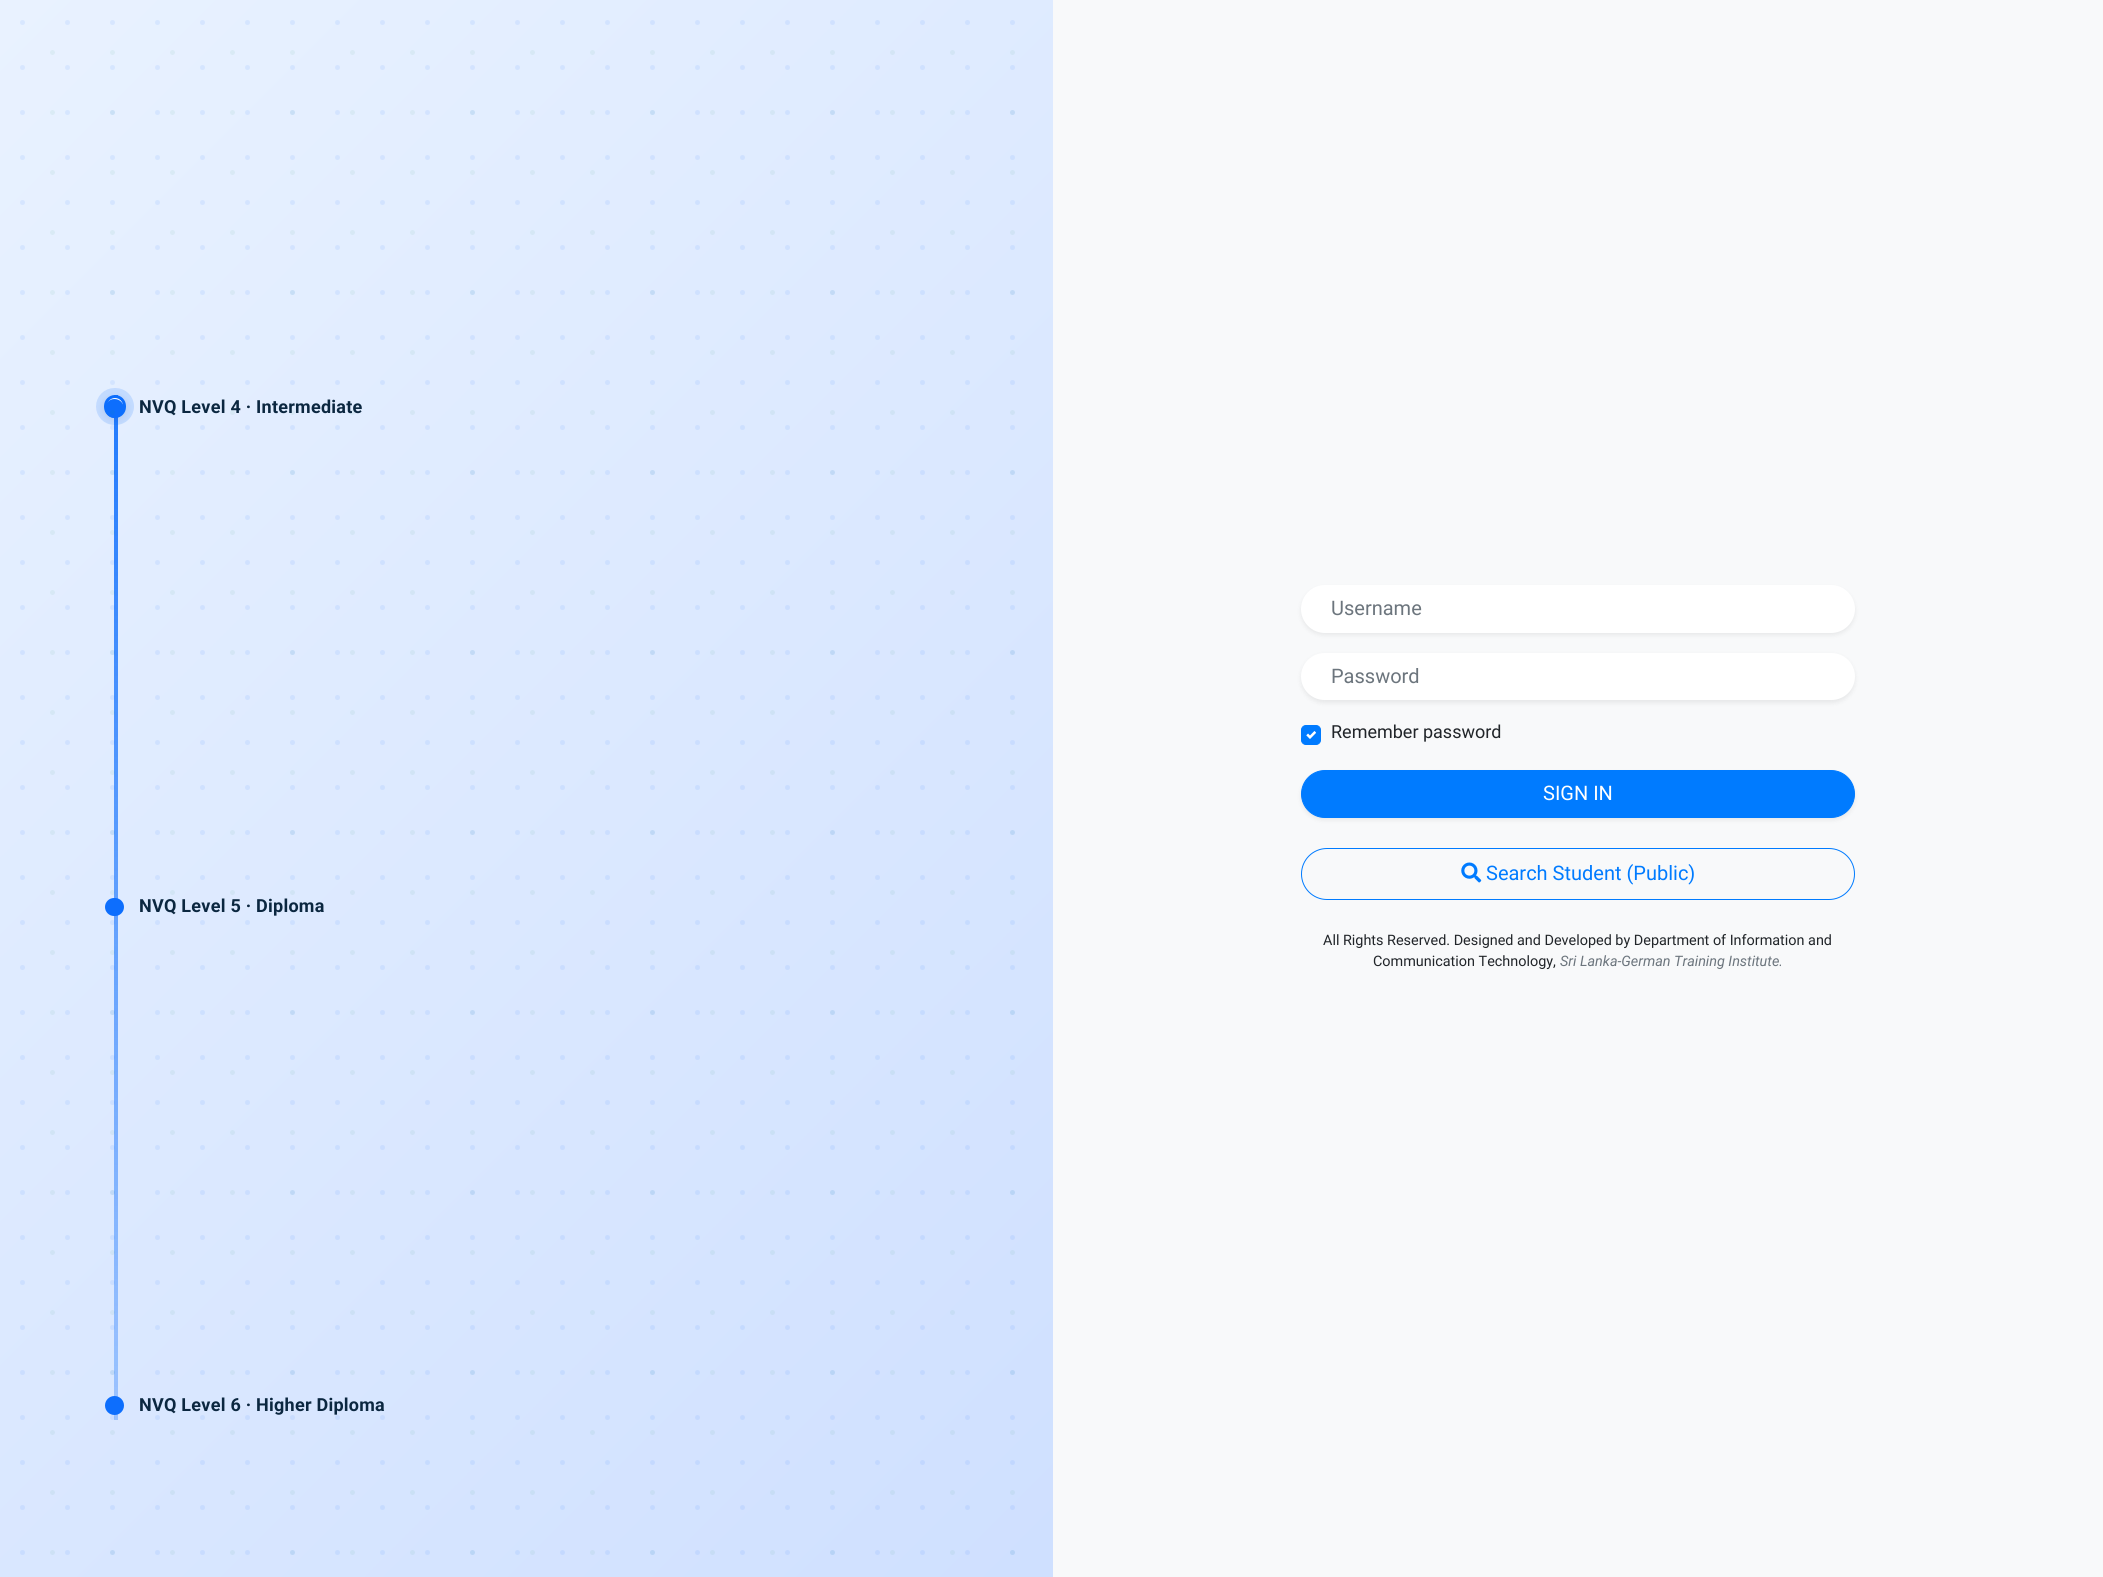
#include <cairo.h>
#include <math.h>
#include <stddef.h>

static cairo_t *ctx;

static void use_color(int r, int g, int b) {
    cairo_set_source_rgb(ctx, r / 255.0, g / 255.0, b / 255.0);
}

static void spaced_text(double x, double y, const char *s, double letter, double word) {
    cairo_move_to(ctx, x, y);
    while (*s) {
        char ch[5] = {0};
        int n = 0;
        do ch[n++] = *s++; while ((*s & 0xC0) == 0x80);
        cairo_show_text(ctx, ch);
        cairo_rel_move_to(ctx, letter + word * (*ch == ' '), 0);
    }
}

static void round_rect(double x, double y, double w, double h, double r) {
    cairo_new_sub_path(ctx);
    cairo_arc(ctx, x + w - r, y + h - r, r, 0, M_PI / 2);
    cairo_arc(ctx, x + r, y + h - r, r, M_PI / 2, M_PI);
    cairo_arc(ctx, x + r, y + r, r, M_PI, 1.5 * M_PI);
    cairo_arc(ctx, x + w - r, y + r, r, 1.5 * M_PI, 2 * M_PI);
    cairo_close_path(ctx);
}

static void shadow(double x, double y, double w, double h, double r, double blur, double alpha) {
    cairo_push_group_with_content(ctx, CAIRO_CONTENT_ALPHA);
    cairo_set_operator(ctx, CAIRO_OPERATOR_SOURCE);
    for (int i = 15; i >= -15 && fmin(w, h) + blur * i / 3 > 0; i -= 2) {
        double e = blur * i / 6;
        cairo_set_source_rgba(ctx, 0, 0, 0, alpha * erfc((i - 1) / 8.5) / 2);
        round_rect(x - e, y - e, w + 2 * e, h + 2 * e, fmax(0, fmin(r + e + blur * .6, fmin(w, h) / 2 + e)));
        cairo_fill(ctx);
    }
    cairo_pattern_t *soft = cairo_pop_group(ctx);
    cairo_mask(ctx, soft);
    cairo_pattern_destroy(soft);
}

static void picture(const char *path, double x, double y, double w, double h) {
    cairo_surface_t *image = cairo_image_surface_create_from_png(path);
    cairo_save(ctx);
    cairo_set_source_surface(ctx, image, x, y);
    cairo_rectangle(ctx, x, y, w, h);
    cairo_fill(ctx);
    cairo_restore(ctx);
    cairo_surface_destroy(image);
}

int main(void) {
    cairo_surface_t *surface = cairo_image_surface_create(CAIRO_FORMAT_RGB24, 2103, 1577);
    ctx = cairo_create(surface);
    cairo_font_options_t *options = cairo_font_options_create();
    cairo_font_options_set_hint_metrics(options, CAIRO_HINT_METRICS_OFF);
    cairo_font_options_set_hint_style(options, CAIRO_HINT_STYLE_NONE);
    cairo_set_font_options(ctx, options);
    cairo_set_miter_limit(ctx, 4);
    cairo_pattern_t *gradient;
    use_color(255, 255, 255);
    cairo_paint(ctx);
    gradient = cairo_pattern_create_linear(-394, 394, 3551, 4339);
    cairo_pattern_add_color_stop_rgba(gradient, 0, 0.914, 0.949, 1, 1);
    cairo_pattern_add_color_stop_rgba(gradient, 0.33, 0.812, 0.878, 1, 1);
    cairo_pattern_add_color_stop_rgba(gradient, 0.67, 0.843, 1, 0.945, 1);
    cairo_pattern_add_color_stop_rgba(gradient, 1, 1, 0.953, 0.839, 1);
    cairo_set_source(ctx, gradient);
    cairo_pattern_destroy(gradient);
    cairo_rectangle(ctx, 0, 0, 1053, 1577);
    cairo_fill(ctx);
    cairo_new_path(ctx);
    cairo_move_to(ctx, 52.5, 52.5);
    cairo_line_to(ctx, 52.5, 1552.8);
    cairo_set_source_rgba(ctx, 0.098, 0.529, 0.329, 0.06);
    cairo_set_line_width(ctx, 5);
    cairo_set_line_cap(ctx, CAIRO_LINE_CAP_ROUND);
    cairo_set_dash(ctx, (double[]){0, 60}, 2, 0);
    cairo_stroke(ctx);
    gradient = cairo_pattern_create_linear(116, 395, 116, 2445);
    cairo_pattern_add_color_stop_rgba(gradient, 0, 0.051, 0.431, 0.992, 0.9);
    cairo_pattern_add_color_stop_rgba(gradient, 0.5, 0.051, 0.431, 0.992, 0.3);
    cairo_pattern_add_color_stop_rgba(gradient, 1, 0.051, 0.431, 0.992, 0.9);
    cairo_set_source(ctx, gradient);
    cairo_pattern_destroy(gradient);
    cairo_rectangle(ctx, 114, 395, 4, 1025);
    cairo_fill(ctx);
    use_color(0, 0, 0);
    shadow(104, 398, 22, 22, 11, 4, 0.08);
    round_rect(100, 392, 30, 29, 14.5);
    cairo_set_source_rgba(ctx, 0.051, 0.431, 0.992, 0.15);
    cairo_set_line_width(ctx, 8);
    cairo_set_line_cap(ctx, CAIRO_LINE_CAP_BUTT);
    cairo_set_dash(ctx, NULL, 0, 0);
    cairo_stroke(ctx);
    use_color(255, 255, 255);
    round_rect(105.5, 396.5, 19, 20, 9.5);
    cairo_fill_preserve(ctx);
    use_color(13, 110, 253);
    cairo_set_line_width(ctx, 3);
    cairo_stroke(ctx);
    cairo_arc(ctx, 114.5, 408.5, 9.5, 0, 2 * M_PI);
    cairo_fill(ctx);
    round_rect(105, 898, 19, 18, 9);
    cairo_fill(ctx);
    cairo_arc(ctx, 114.5, 1405.5, 9.5, 0, 2 * M_PI);
    cairo_fill(ctx);
    cairo_new_path(ctx);
    cairo_move_to(ctx, 112.5, 52.5);
    cairo_line_to(ctx, 112.5, 1552.8);
    cairo_set_source_rgba(ctx, 0.098, 0.529, 0.329, 0.06);
    cairo_set_line_width(ctx, 5);
    cairo_set_line_cap(ctx, CAIRO_LINE_CAP_ROUND);
    cairo_set_dash(ctx, (double[]){0, 60}, 2, 0);
    cairo_stroke(ctx);
    cairo_new_path(ctx);
    cairo_move_to(ctx, 172.5, 52.5);
    cairo_line_to(ctx, 172.5, 1552.8);
    cairo_stroke(ctx);
    cairo_new_path(ctx);
    cairo_move_to(ctx, 232.5, 52.5);
    cairo_line_to(ctx, 232.5, 1552.8);
    cairo_stroke(ctx);
    cairo_new_path(ctx);
    cairo_move_to(ctx, 292.5, 52.5);
    cairo_line_to(ctx, 292.5, 1552.8);
    cairo_stroke(ctx);
    cairo_new_path(ctx);
    cairo_move_to(ctx, 352.5, 52.5);
    cairo_line_to(ctx, 352.5, 1552.8);
    cairo_stroke(ctx);
    cairo_new_path(ctx);
    cairo_move_to(ctx, 412.5, 52.5);
    cairo_line_to(ctx, 412.5, 1552.8);
    cairo_stroke(ctx);
    cairo_new_path(ctx);
    cairo_move_to(ctx, 472.5, 52.5);
    cairo_line_to(ctx, 472.5, 1552.8);
    cairo_stroke(ctx);
    cairo_new_path(ctx);
    cairo_move_to(ctx, 532.5, 52.5);
    cairo_line_to(ctx, 532.5, 1552.8);
    cairo_stroke(ctx);
    cairo_new_path(ctx);
    cairo_move_to(ctx, 592.5, 52.5);
    cairo_line_to(ctx, 592.5, 1552.8);
    cairo_stroke(ctx);
    cairo_new_path(ctx);
    cairo_move_to(ctx, 652.5, 52.5);
    cairo_line_to(ctx, 652.5, 1552.8);
    cairo_stroke(ctx);
    cairo_new_path(ctx);
    cairo_move_to(ctx, 712.5, 52.5);
    cairo_line_to(ctx, 712.5, 1552.8);
    cairo_stroke(ctx);
    cairo_new_path(ctx);
    cairo_move_to(ctx, 772.5, 52.5);
    cairo_line_to(ctx, 772.5, 1552.8);
    cairo_stroke(ctx);
    cairo_new_path(ctx);
    cairo_move_to(ctx, 832.5, 52.5);
    cairo_line_to(ctx, 832.5, 1552.8);
    cairo_stroke(ctx);
    cairo_new_path(ctx);
    cairo_move_to(ctx, 892.5, 52.5);
    cairo_line_to(ctx, 892.5, 1552.8);
    cairo_stroke(ctx);
    cairo_new_path(ctx);
    cairo_move_to(ctx, 952.5, 52.5);
    cairo_line_to(ctx, 952.5, 1552.8);
    cairo_stroke(ctx);
    cairo_new_path(ctx);
    cairo_move_to(ctx, 1012.5, 52.5);
    cairo_line_to(ctx, 1012.5, 1552.8);
    cairo_stroke(ctx);
    cairo_new_path(ctx);
    cairo_move_to(ctx, 22.5, 22.5);
    cairo_line_to(ctx, 22.5, 1552.8);
    cairo_set_source_rgba(ctx, 0.051, 0.431, 0.992, 0.08);
    cairo_set_dash(ctx, (double[]){0, 45}, 2, 0);
    cairo_stroke(ctx);
    cairo_new_path(ctx);
    cairo_move_to(ctx, 67.5, 22.5);
    cairo_line_to(ctx, 67.5, 1552.8);
    cairo_stroke(ctx);
    cairo_new_path(ctx);
    cairo_move_to(ctx, 112.5, 22.5);
    cairo_line_to(ctx, 112.5, 1552.8);
    cairo_stroke(ctx);
    cairo_new_path(ctx);
    cairo_move_to(ctx, 157.5, 22.5);
    cairo_line_to(ctx, 157.5, 1552.8);
    cairo_stroke(ctx);
    cairo_new_path(ctx);
    cairo_move_to(ctx, 202.5, 22.5);
    cairo_line_to(ctx, 202.5, 1552.8);
    cairo_stroke(ctx);
    cairo_new_path(ctx);
    cairo_move_to(ctx, 247.5, 22.5);
    cairo_line_to(ctx, 247.5, 1552.8);
    cairo_stroke(ctx);
    cairo_new_path(ctx);
    cairo_move_to(ctx, 292.5, 22.5);
    cairo_line_to(ctx, 292.5, 1552.8);
    cairo_stroke(ctx);
    cairo_new_path(ctx);
    cairo_move_to(ctx, 337.5, 22.5);
    cairo_line_to(ctx, 337.5, 1552.8);
    cairo_stroke(ctx);
    cairo_new_path(ctx);
    cairo_move_to(ctx, 382.5, 22.5);
    cairo_line_to(ctx, 382.5, 1552.8);
    cairo_stroke(ctx);
    cairo_new_path(ctx);
    cairo_move_to(ctx, 427.5, 22.5);
    cairo_line_to(ctx, 427.5, 1552.8);
    cairo_stroke(ctx);
    cairo_new_path(ctx);
    cairo_move_to(ctx, 472.5, 22.5);
    cairo_line_to(ctx, 472.5, 1552.8);
    cairo_stroke(ctx);
    cairo_new_path(ctx);
    cairo_move_to(ctx, 517.5, 22.5);
    cairo_line_to(ctx, 517.5, 1552.8);
    cairo_stroke(ctx);
    cairo_new_path(ctx);
    cairo_move_to(ctx, 562.5, 22.5);
    cairo_line_to(ctx, 562.5, 1552.8);
    cairo_stroke(ctx);
    cairo_new_path(ctx);
    cairo_move_to(ctx, 607.5, 22.5);
    cairo_line_to(ctx, 607.5, 1552.8);
    cairo_stroke(ctx);
    cairo_new_path(ctx);
    cairo_move_to(ctx, 652.5, 22.5);
    cairo_line_to(ctx, 652.5, 1552.8);
    cairo_stroke(ctx);
    cairo_new_path(ctx);
    cairo_move_to(ctx, 697.5, 22.5);
    cairo_line_to(ctx, 697.5, 1552.8);
    cairo_stroke(ctx);
    cairo_new_path(ctx);
    cairo_move_to(ctx, 742.5, 22.5);
    cairo_line_to(ctx, 742.5, 1552.8);
    cairo_stroke(ctx);
    cairo_new_path(ctx);
    cairo_move_to(ctx, 787.5, 22.5);
    cairo_line_to(ctx, 787.5, 1552.8);
    cairo_stroke(ctx);
    cairo_new_path(ctx);
    cairo_move_to(ctx, 832.5, 22.5);
    cairo_line_to(ctx, 832.5, 1552.8);
    cairo_stroke(ctx);
    cairo_new_path(ctx);
    cairo_move_to(ctx, 877.5, 22.5);
    cairo_line_to(ctx, 877.5, 1552.8);
    cairo_stroke(ctx);
    cairo_new_path(ctx);
    cairo_move_to(ctx, 922.5, 22.5);
    cairo_line_to(ctx, 922.5, 1552.8);
    cairo_stroke(ctx);
    cairo_new_path(ctx);
    cairo_move_to(ctx, 967.5, 22.5);
    cairo_line_to(ctx, 967.5, 1552.8);
    cairo_stroke(ctx);
    cairo_new_path(ctx);
    cairo_move_to(ctx, 1012.5, 22.5);
    cairo_line_to(ctx, 1012.5, 1552.8);
    cairo_stroke(ctx);
    cairo_select_font_face(ctx, "Roboto", CAIRO_FONT_SLANT_NORMAL, CAIRO_FONT_WEIGHT_BOLD);
    cairo_set_font_size(ctx, 18);
    use_color(11, 39, 64);
    spaced_text(139, 413, "NVQ Level 4 · Intermediate", 0.25, 0);
    spaced_text(139, 912, "NVQ Level 5 · Diploma", 0.25, 0);
    spaced_text(139, 1411, "NVQ Level 6 · Higher Diploma", 0.25, 0);
    use_color(248, 249, 250);
    cairo_rectangle(ctx, 1053, 0, 1050, 1577);
    cairo_fill(ctx);
    use_color(0, 0, 0);
    shadow(1301, 588, 554, 47, 23.5, 2.5, 0.07);
    use_color(255, 255, 255);
    round_rect(1301, 585, 554, 48, 24);
    cairo_fill(ctx);
    cairo_select_font_face(ctx, "Roboto", CAIRO_FONT_SLANT_NORMAL, CAIRO_FONT_WEIGHT_NORMAL);
    cairo_set_font_size(ctx, 20);
    use_color(108, 117, 125);
    cairo_move_to(ctx, 1331, 615);
    cairo_show_text(ctx, "Username");
    use_color(0, 0, 0);
    shadow(1301, 655, 554, 48, 24, 2.5, 0.07);
    use_color(255, 255, 255);
    round_rect(1301, 653, 554, 47, 23.5);
    cairo_fill(ctx);
    use_color(108, 117, 125);
    cairo_move_to(ctx, 1331, 683);
    cairo_show_text(ctx, "Password");
    use_color(0, 123, 255);
    round_rect(1301.5, 725.5, 19, 19, 4.5);
    cairo_fill_preserve(ctx);
    cairo_set_line_width(ctx, 1);
    cairo_set_line_cap(ctx, CAIRO_LINE_CAP_BUTT);
    cairo_set_dash(ctx, NULL, 0, 0);
    cairo_stroke(ctx);
    cairo_set_font_size(ctx, 18);
    use_color(33, 37, 41);
    cairo_move_to(ctx, 1331, 738);
    cairo_show_text(ctx, "Remember password");
    picture("img1.png", 1306, 731, 10, 8);
    use_color(0, 0, 0);
    shadow(1301, 773, 554, 47, 23.5, 2.5, 0.07);
    use_color(0, 123, 255);
    round_rect(1301.5, 770.5, 553, 47, 23.5);
    cairo_fill_preserve(ctx);
    cairo_stroke(ctx);
    cairo_set_font_size(ctx, 20);
    use_color(255, 255, 255);
    cairo_move_to(ctx, 1543, 800);
    cairo_show_text(ctx, "SIGN IN");
    round_rect(1301.5, 848.5, 553, 51, 25.5);
    use_color(0, 123, 255);
    cairo_stroke(ctx);
    picture("img2.png", 1461, 862, 21, 21);
    cairo_move_to(ctx, 1486, 880);
    cairo_show_text(ctx, "Search Student (Public)");
    cairo_set_font_size(ctx, 14.4);
    use_color(33, 37, 41);
    cairo_move_to(ctx, 1323, 945);
    cairo_show_text(ctx, "All Rights Reserved. Designed and Developed by Department of Information and");
    cairo_move_to(ctx, 1373, 966);
    cairo_show_text(ctx, "Communication Technology,");
    cairo_select_font_face(ctx, "Roboto", CAIRO_FONT_SLANT_ITALIC, CAIRO_FONT_WEIGHT_NORMAL);
    use_color(108, 117, 125);
    cairo_move_to(ctx, 1560, 966);
    cairo_show_text(ctx, "Sri Lanka-German Training Institute.");
    cairo_surface_write_to_png(surface, "result.png");
    cairo_font_options_destroy(options);
    cairo_destroy(ctx);
    cairo_surface_destroy(surface);
    return 0;
}
